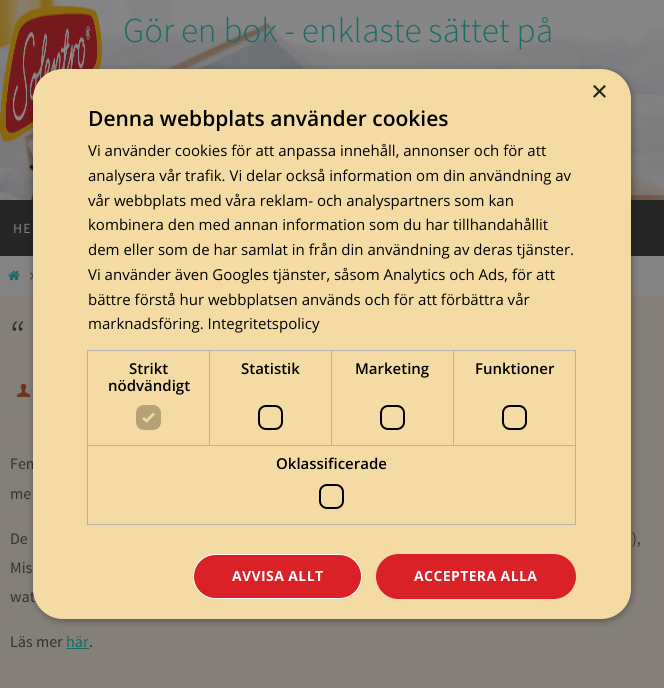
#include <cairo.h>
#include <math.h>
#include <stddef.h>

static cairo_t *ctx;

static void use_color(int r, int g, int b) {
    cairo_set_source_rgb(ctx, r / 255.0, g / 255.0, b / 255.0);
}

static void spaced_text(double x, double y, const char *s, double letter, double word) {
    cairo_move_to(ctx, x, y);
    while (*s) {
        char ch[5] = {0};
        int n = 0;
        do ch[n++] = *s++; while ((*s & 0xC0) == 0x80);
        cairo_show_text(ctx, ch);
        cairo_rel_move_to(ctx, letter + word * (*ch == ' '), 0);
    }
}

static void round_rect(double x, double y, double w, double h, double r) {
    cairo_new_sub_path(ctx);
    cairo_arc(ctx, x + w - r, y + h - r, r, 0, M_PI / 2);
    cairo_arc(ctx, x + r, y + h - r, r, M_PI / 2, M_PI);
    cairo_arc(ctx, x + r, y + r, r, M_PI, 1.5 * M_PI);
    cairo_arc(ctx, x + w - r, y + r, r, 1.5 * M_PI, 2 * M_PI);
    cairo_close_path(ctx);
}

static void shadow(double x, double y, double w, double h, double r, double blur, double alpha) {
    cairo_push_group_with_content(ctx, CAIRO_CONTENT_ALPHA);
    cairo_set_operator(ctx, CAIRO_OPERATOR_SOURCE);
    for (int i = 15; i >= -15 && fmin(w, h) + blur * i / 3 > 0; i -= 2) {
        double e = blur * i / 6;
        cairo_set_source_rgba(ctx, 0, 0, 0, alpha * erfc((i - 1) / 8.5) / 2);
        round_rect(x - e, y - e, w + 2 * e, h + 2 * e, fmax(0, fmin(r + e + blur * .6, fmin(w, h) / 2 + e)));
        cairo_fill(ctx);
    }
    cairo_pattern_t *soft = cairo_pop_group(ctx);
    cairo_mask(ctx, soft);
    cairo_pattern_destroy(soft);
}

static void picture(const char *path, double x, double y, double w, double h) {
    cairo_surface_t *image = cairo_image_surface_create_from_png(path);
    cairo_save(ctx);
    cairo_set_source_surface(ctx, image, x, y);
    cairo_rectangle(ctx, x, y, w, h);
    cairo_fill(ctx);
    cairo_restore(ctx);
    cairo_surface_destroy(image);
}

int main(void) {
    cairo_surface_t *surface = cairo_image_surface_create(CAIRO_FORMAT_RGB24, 664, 688);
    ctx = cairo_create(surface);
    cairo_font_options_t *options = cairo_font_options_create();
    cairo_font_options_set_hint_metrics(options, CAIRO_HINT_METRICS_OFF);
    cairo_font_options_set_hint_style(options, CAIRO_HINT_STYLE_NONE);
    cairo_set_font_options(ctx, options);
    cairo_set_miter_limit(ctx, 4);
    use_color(132, 127, 121);
    cairo_paint(ctx);
    picture("img1.png", 0, 0, 664, 200);
    picture("img2.png", 0, 5, 102, 137);
    cairo_select_font_face(ctx, "Source Sans Pro Light", CAIRO_FONT_SLANT_NORMAL, CAIRO_FONT_WEIGHT_NORMAL);
    cairo_set_font_size(ctx, 35);
    use_color(24, 109, 102);
    cairo_move_to(ctx, 123, 42);
    cairo_show_text(ctx, "Gör en bok - enklaste sättet på");
    cairo_set_source_rgba(ctx, 0.533, 0.533, 0.533, 0.52);
    cairo_rectangle(ctx, 630, 95, 34, 100);
    cairo_fill(ctx);
    use_color(38, 38, 39);
    cairo_rectangle(ctx, 0, 200, 664, 56);
    cairo_fill(ctx);
    cairo_select_font_face(ctx, "Source Sans Pro", CAIRO_FONT_SLANT_NORMAL, CAIRO_FONT_WEIGHT_NORMAL);
    cairo_set_font_size(ctx, 14);
    use_color(128, 128, 128);
    spaced_text(13, 233, "HE", 1, 0);
    use_color(131, 131, 131);
    cairo_rectangle(ctx, 0, 256, 664, 40);
    cairo_fill(ctx);
    picture("img3.png", 8, 270, 12, 11);
    picture("img4.png", 30, 272, 3, 8);
    cairo_select_font_face(ctx, "Source Sans Pro Light", CAIRO_FONT_SLANT_NORMAL, CAIRO_FONT_WEIGHT_NORMAL);
    cairo_set_font_size(ctx, 44);
    use_color(43, 43, 43);
    cairo_move_to(ctx, 10, 352);
    cairo_show_text(ctx, "“");
    use_color(128, 128, 128);
    cairo_rectangle(ctx, 10, 367, 644, 1);
    cairo_fill(ctx);
    cairo_rectangle(ctx, 10, 410, 644, 1);
    cairo_fill(ctx);
    picture("img5.png", 17, 383, 13, 14);
    cairo_select_font_face(ctx, "Source Sans Pro", CAIRO_FONT_SLANT_NORMAL, CAIRO_FONT_WEIGHT_NORMAL);
    cairo_set_font_size(ctx, 16);
    use_color(51, 51, 51);
    cairo_move_to(ctx, 10, 469);
    cairo_show_text(ctx, "Fem");
    cairo_move_to(ctx, 10, 499);
    cairo_show_text(ctx, "me");
    cairo_move_to(ctx, 10, 544);
    cairo_show_text(ctx, "De");
    cairo_move_to(ctx, 632, 544);
    cairo_show_text(ctx, "),");
    cairo_move_to(ctx, 10, 573);
    cairo_show_text(ctx, "Mis");
    cairo_move_to(ctx, 10, 602);
    cairo_show_text(ctx, "wat");
    cairo_move_to(ctx, 10, 647);
    cairo_show_text(ctx, "Läs mer");
    use_color(24, 109, 102);
    cairo_move_to(ctx, 66, 647);
    cairo_show_text(ctx, "här");
    cairo_rectangle(ctx, 66, 648, 23, 1);
    cairo_fill(ctx);
    use_color(51, 51, 51);
    cairo_move_to(ctx, 89, 647);
    cairo_show_text(ctx, ".");
    use_color(0, 0, 0);
    shadow(34, 71, 598, 550, 30, 4, 0.35);
    use_color(244, 219, 163);
    round_rect(33, 69, 598, 550, 30);
    cairo_fill(ctx);
    cairo_select_font_face(ctx, "Liberation Sans", CAIRO_FONT_SLANT_NORMAL, CAIRO_FONT_WEIGHT_NORMAL);
    cairo_set_font_size(ctx, 29);
    use_color(37, 33, 24);
    cairo_move_to(ctx, 591, 101);
    cairo_show_text(ctx, "×");
    cairo_select_font_face(ctx, "Open Sans SemiBold", CAIRO_FONT_SLANT_NORMAL, CAIRO_FONT_WEIGHT_NORMAL);
    cairo_set_font_size(ctx, 21);
    use_color(0, 0, 0);
    cairo_move_to(ctx, 88, 126);
    cairo_show_text(ctx, "Denna webbplats använder cookies");
    cairo_select_font_face(ctx, "Open Sans", CAIRO_FONT_SLANT_NORMAL, CAIRO_FONT_WEIGHT_NORMAL);
    cairo_set_font_size(ctx, 15);
    cairo_move_to(ctx, 88, 156);
    cairo_show_text(ctx, "Vi använder cookies för att anpassa innehåll, annonser och för att");
    cairo_move_to(ctx, 88, 181);
    cairo_show_text(ctx, "analysera vår trafik. Vi delar också information om din användning av");
    cairo_move_to(ctx, 88, 206);
    cairo_show_text(ctx, "vår webbplats med våra reklam- och analyspartners som kan");
    cairo_move_to(ctx, 88, 230);
    cairo_show_text(ctx, "kombinera den med annan information som du har tillhandahållit");
    cairo_move_to(ctx, 88, 255);
    cairo_show_text(ctx, "dem eller som de har samlat in från din användning av deras tjänster.");
    cairo_move_to(ctx, 88, 280);
    cairo_show_text(ctx, "Vi använder även Googles tjänster, såsom Analytics och Ads, för att");
    cairo_move_to(ctx, 88, 305);
    cairo_show_text(ctx, "bättre förstå hur webbplatsen används och för att förbättra vår");
    cairo_move_to(ctx, 88, 329);
    cairo_show_text(ctx, "marknadsföring. Integritetspolicy");
    cairo_rectangle(ctx, 87.5, 350.5, 122, 95);
    use_color(179, 179, 179);
    cairo_set_line_width(ctx, 1);
    cairo_stroke(ctx);
    cairo_select_font_face(ctx, "Open Sans SemiBold", CAIRO_FONT_SLANT_NORMAL, CAIRO_FONT_WEIGHT_NORMAL);
    use_color(0, 0, 0);
    cairo_move_to(ctx, 129, 374);
    cairo_show_text(ctx, "Strikt");
    cairo_move_to(ctx, 108, 391);
    cairo_show_text(ctx, "nödvändigt");
    use_color(181, 162, 121);
    round_rect(136, 405, 25, 25, 8);
    cairo_fill(ctx);
    cairo_new_path(ctx);
    cairo_move_to(ctx, 143, 418);
    cairo_line_to(ctx, 146.5, 421);
    cairo_line_to(ctx, 154, 413.5);
    use_color(244, 219, 163);
    cairo_set_line_width(ctx, 2.6);
    cairo_stroke(ctx);
    cairo_rectangle(ctx, 209.5, 350.5, 122, 95);
    use_color(179, 179, 179);
    cairo_set_line_width(ctx, 1);
    cairo_stroke(ctx);
    use_color(0, 0, 0);
    cairo_move_to(ctx, 241, 374);
    cairo_show_text(ctx, "Statistik");
    round_rect(259, 406, 23, 23, 7);
    cairo_set_line_width(ctx, 2);
    cairo_stroke(ctx);
    cairo_rectangle(ctx, 331.5, 350.5, 122, 95);
    use_color(179, 179, 179);
    cairo_set_line_width(ctx, 1);
    cairo_stroke(ctx);
    use_color(0, 0, 0);
    cairo_move_to(ctx, 355, 374);
    cairo_show_text(ctx, "Marketing");
    round_rect(381, 406, 23, 23, 7);
    cairo_set_line_width(ctx, 2);
    cairo_stroke(ctx);
    cairo_rectangle(ctx, 453.5, 350.5, 122, 95);
    use_color(179, 179, 179);
    cairo_set_line_width(ctx, 1);
    cairo_stroke(ctx);
    use_color(0, 0, 0);
    cairo_move_to(ctx, 475, 374);
    cairo_show_text(ctx, "Funktioner");
    round_rect(503, 406, 23, 23, 7);
    cairo_set_line_width(ctx, 2);
    cairo_stroke(ctx);
    cairo_rectangle(ctx, 87.5, 445.5, 488, 79);
    use_color(179, 179, 179);
    cairo_set_line_width(ctx, 1);
    cairo_stroke(ctx);
    use_color(0, 0, 0);
    cairo_move_to(ctx, 276, 469);
    cairo_show_text(ctx, "Oklassificerade");
    round_rect(320, 485, 23, 23, 7);
    cairo_set_line_width(ctx, 2);
    cairo_stroke(ctx);
    use_color(218, 33, 39);
    round_rect(193.5, 554.5, 168, 44, 22);
    cairo_fill_preserve(ctx);
    use_color(255, 255, 255);
    cairo_set_line_width(ctx, 1);
    cairo_stroke(ctx);
    cairo_select_font_face(ctx, "Open Sans", CAIRO_FONT_SLANT_NORMAL, CAIRO_FONT_WEIGHT_BOLD);
    cairo_set_font_size(ctx, 14);
    spaced_text(232, 581, "AVVISA ALLT", 0.4, 0);
    use_color(218, 33, 39);
    round_rect(376, 554, 200, 45, 22.5);
    cairo_fill(ctx);
    use_color(255, 255, 255);
    spaced_text(414, 581, "ACCEPTERA ALLA", 0.4, 0);
    cairo_surface_write_to_png(surface, "result.png");
    cairo_font_options_destroy(options);
    cairo_destroy(ctx);
    cairo_surface_destroy(surface);
    return 0;
}
